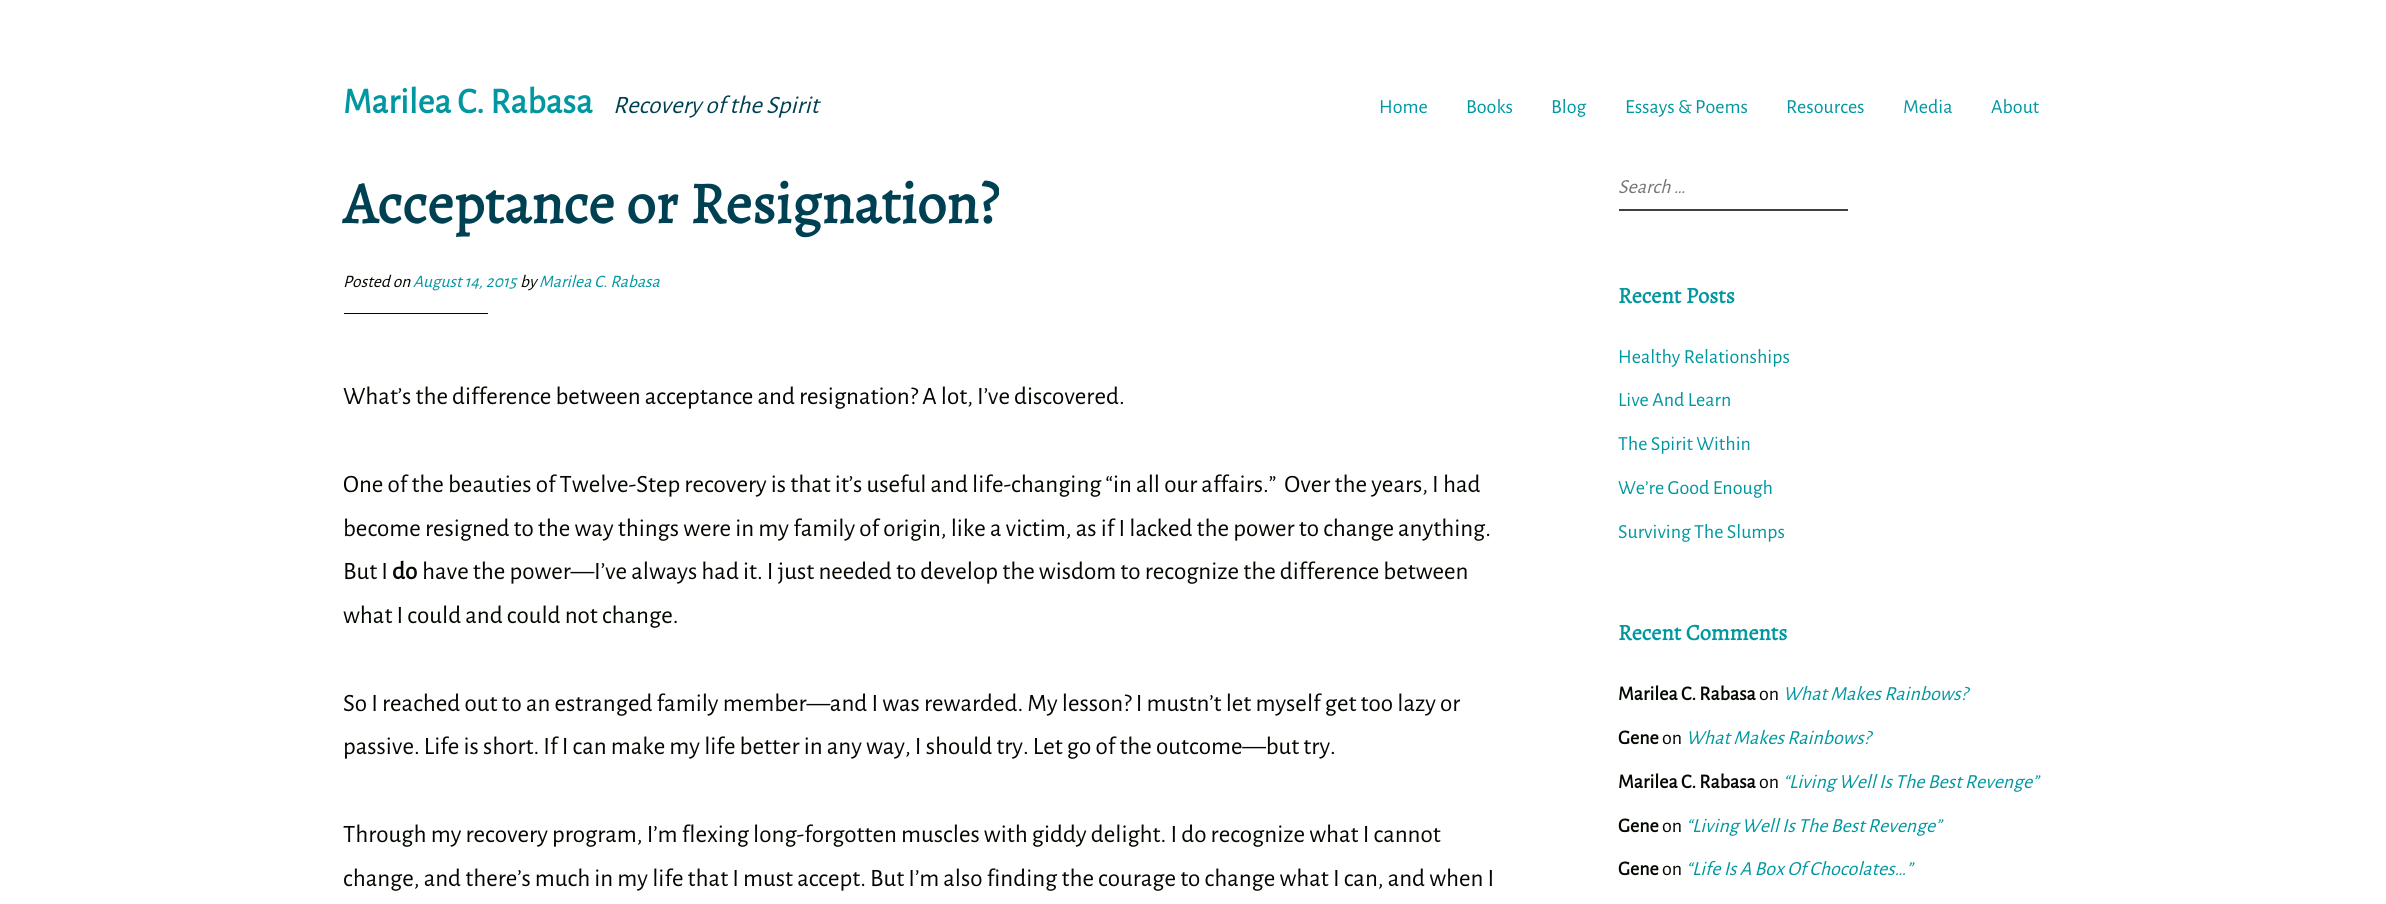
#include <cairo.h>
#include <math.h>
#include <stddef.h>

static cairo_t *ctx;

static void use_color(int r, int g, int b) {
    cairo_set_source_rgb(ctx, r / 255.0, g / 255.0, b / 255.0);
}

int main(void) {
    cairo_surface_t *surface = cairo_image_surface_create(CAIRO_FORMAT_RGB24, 2386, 904);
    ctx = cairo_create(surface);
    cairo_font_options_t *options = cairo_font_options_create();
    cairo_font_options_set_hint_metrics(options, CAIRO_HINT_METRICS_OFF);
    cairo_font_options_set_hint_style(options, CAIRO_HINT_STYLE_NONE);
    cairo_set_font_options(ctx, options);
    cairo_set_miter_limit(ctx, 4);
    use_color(255, 255, 255);
    cairo_paint(ctx);
    cairo_select_font_face(ctx, "Alegreya Sans", CAIRO_FONT_SLANT_NORMAL, CAIRO_FONT_WEIGHT_BOLD);
    cairo_set_font_size(ctx, 36.25);
    use_color(0, 151, 160);
    cairo_move_to(ctx, 343, 113);
    cairo_show_text(ctx, "Marilea C. Rabasa");
    cairo_select_font_face(ctx, "Alegreya Sans", CAIRO_FONT_SLANT_ITALIC, CAIRO_FONT_WEIGHT_NORMAL);
    cairo_set_font_size(ctx, 25);
    use_color(0, 64, 83);
    cairo_move_to(ctx, 613, 113);
    cairo_show_text(ctx, "Recovery of the Spirit");
    cairo_select_font_face(ctx, "Alegreya Sans", CAIRO_FONT_SLANT_NORMAL, CAIRO_FONT_WEIGHT_NORMAL);
    cairo_set_font_size(ctx, 20);
    use_color(0, 151, 160);
    cairo_move_to(ctx, 1379, 113);
    cairo_show_text(ctx, "Home");
    cairo_move_to(ctx, 1466, 113);
    cairo_show_text(ctx, "Books");
    cairo_move_to(ctx, 1551, 113);
    cairo_show_text(ctx, "Blog");
    cairo_move_to(ctx, 1625, 113);
    cairo_show_text(ctx, "Essays & Poems");
    cairo_move_to(ctx, 1786, 113);
    cairo_show_text(ctx, "Resources");
    cairo_move_to(ctx, 1903, 113);
    cairo_show_text(ctx, "Media");
    cairo_move_to(ctx, 1991, 113);
    cairo_show_text(ctx, "About");
    cairo_select_font_face(ctx, "Alegreya", CAIRO_FONT_SLANT_NORMAL, CAIRO_FONT_WEIGHT_BOLD);
    cairo_set_font_size(ctx, 58.75);
    use_color(0, 64, 83);
    cairo_move_to(ctx, 343, 223);
    cairo_show_text(ctx, "Acceptance or Resignation?");
    cairo_select_font_face(ctx, "Alegreya Sans", CAIRO_FONT_SLANT_ITALIC, CAIRO_FONT_WEIGHT_NORMAL);
    cairo_set_font_size(ctx, 17.5);
    use_color(2, 8, 0);
    cairo_move_to(ctx, 343, 287);
    cairo_show_text(ctx, "Posted on");
    use_color(0, 151, 160);
    cairo_move_to(ctx, 413, 287);
    cairo_show_text(ctx, "August 14, 2015");
    use_color(2, 8, 0);
    cairo_move_to(ctx, 520, 287);
    cairo_show_text(ctx, "by");
    use_color(0, 151, 160);
    cairo_move_to(ctx, 539, 287);
    cairo_show_text(ctx, "Marilea C. Rabasa");
    use_color(2, 8, 0);
    cairo_rectangle(ctx, 344, 313, 144, 1);
    cairo_fill(ctx);
    cairo_select_font_face(ctx, "Alegreya Sans", CAIRO_FONT_SLANT_NORMAL, CAIRO_FONT_WEIGHT_NORMAL);
    cairo_set_font_size(ctx, 25);
    cairo_move_to(ctx, 343, 404);
    cairo_show_text(ctx, "What’s the difference between acceptance and resignation? A lot, I’ve discovered.");
    cairo_move_to(ctx, 343, 492);
    cairo_show_text(ctx, "One of the beauties of Twelve-Step recovery is that it’s useful and life-changing “in all our affairs.”  Over the years, I had");
    cairo_move_to(ctx, 343, 536);
    cairo_show_text(ctx, "become resigned to the way things were in my family of origin, like a victim, as if I lacked the power to change anything.");
    cairo_move_to(ctx, 343, 579);
    cairo_show_text(ctx, "But I");
    cairo_select_font_face(ctx, "Alegreya Sans", CAIRO_FONT_SLANT_NORMAL, CAIRO_FONT_WEIGHT_BOLD);
    cairo_move_to(ctx, 392, 579);
    cairo_show_text(ctx, "do");
    cairo_select_font_face(ctx, "Alegreya Sans", CAIRO_FONT_SLANT_NORMAL, CAIRO_FONT_WEIGHT_NORMAL);
    cairo_move_to(ctx, 422, 579);
    cairo_show_text(ctx, "have the power—I’ve always had it. I just needed to develop the wisdom to recognize the difference between");
    cairo_move_to(ctx, 343, 623);
    cairo_show_text(ctx, "what I could and could not change.");
    cairo_move_to(ctx, 343, 711);
    cairo_show_text(ctx, "So I reached out to an estranged family member—and I was rewarded. My lesson? I mustn’t let myself get too lazy or");
    cairo_move_to(ctx, 343, 754);
    cairo_show_text(ctx, "passive. Life is short. If I can make my life better in any way, I should try. Let go of the outcome—but try.");
    cairo_move_to(ctx, 343, 842);
    cairo_show_text(ctx, "Through my recovery program, I’m flexing long-forgotten muscles with giddy delight. I do recognize what I cannot");
    cairo_move_to(ctx, 343, 886);
    cairo_show_text(ctx, "change, and there’s much in my life that I must accept. But I’m also finding the courage to change what I can, and when I");
    use_color(64, 64, 64);
    cairo_rectangle(ctx, 1619, 209, 229, 2);
    cairo_fill(ctx);
    cairo_select_font_face(ctx, "Alegreya Sans", CAIRO_FONT_SLANT_ITALIC, CAIRO_FONT_WEIGHT_NORMAL);
    cairo_set_font_size(ctx, 20);
    use_color(117, 117, 117);
    cairo_move_to(ctx, 1618, 193);
    cairo_show_text(ctx, "Search …");
    cairo_select_font_face(ctx, "Alegreya", CAIRO_FONT_SLANT_NORMAL, CAIRO_FONT_WEIGHT_BOLD);
    cairo_set_font_size(ctx, 22.5);
    use_color(0, 151, 160);
    cairo_move_to(ctx, 1618, 303);
    cairo_show_text(ctx, "Recent Posts");
    cairo_select_font_face(ctx, "Alegreya Sans", CAIRO_FONT_SLANT_NORMAL, CAIRO_FONT_WEIGHT_NORMAL);
    cairo_set_font_size(ctx, 20);
    cairo_move_to(ctx, 1618, 363);
    cairo_show_text(ctx, "Healthy Relationships");
    cairo_move_to(ctx, 1618, 406);
    cairo_show_text(ctx, "Live And Learn");
    cairo_move_to(ctx, 1618, 450);
    cairo_show_text(ctx, "The Spirit Within");
    cairo_move_to(ctx, 1618, 494);
    cairo_show_text(ctx, "We’re Good Enough");
    cairo_move_to(ctx, 1618, 538);
    cairo_show_text(ctx, "Surviving The Slumps");
    cairo_select_font_face(ctx, "Alegreya", CAIRO_FONT_SLANT_NORMAL, CAIRO_FONT_WEIGHT_BOLD);
    cairo_set_font_size(ctx, 22.5);
    cairo_move_to(ctx, 1618, 640);
    cairo_show_text(ctx, "Recent Comments");
    cairo_select_font_face(ctx, "Alegreya Sans", CAIRO_FONT_SLANT_NORMAL, CAIRO_FONT_WEIGHT_BOLD);
    cairo_set_font_size(ctx, 20);
    use_color(2, 8, 0);
    cairo_move_to(ctx, 1618, 700);
    cairo_show_text(ctx, "Marilea C. Rabasa");
    cairo_select_font_face(ctx, "Alegreya Sans", CAIRO_FONT_SLANT_NORMAL, CAIRO_FONT_WEIGHT_NORMAL);
    cairo_move_to(ctx, 1759, 700);
    cairo_show_text(ctx, "on");
    cairo_select_font_face(ctx, "Alegreya Sans", CAIRO_FONT_SLANT_ITALIC, CAIRO_FONT_WEIGHT_NORMAL);
    use_color(0, 151, 160);
    cairo_move_to(ctx, 1783, 700);
    cairo_show_text(ctx, "What Makes Rainbows?");
    cairo_select_font_face(ctx, "Alegreya Sans", CAIRO_FONT_SLANT_NORMAL, CAIRO_FONT_WEIGHT_BOLD);
    use_color(2, 8, 0);
    cairo_move_to(ctx, 1618, 744);
    cairo_show_text(ctx, "Gene");
    cairo_select_font_face(ctx, "Alegreya Sans", CAIRO_FONT_SLANT_NORMAL, CAIRO_FONT_WEIGHT_NORMAL);
    cairo_move_to(ctx, 1662, 744);
    cairo_show_text(ctx, "on");
    cairo_select_font_face(ctx, "Alegreya Sans", CAIRO_FONT_SLANT_ITALIC, CAIRO_FONT_WEIGHT_NORMAL);
    use_color(0, 151, 160);
    cairo_move_to(ctx, 1686, 744);
    cairo_show_text(ctx, "What Makes Rainbows?");
    cairo_select_font_face(ctx, "Alegreya Sans", CAIRO_FONT_SLANT_NORMAL, CAIRO_FONT_WEIGHT_BOLD);
    use_color(2, 8, 0);
    cairo_move_to(ctx, 1618, 788);
    cairo_show_text(ctx, "Marilea C. Rabasa");
    cairo_select_font_face(ctx, "Alegreya Sans", CAIRO_FONT_SLANT_NORMAL, CAIRO_FONT_WEIGHT_NORMAL);
    cairo_move_to(ctx, 1759, 788);
    cairo_show_text(ctx, "on");
    cairo_select_font_face(ctx, "Alegreya Sans", CAIRO_FONT_SLANT_ITALIC, CAIRO_FONT_WEIGHT_NORMAL);
    use_color(0, 151, 160);
    cairo_move_to(ctx, 1783, 788);
    cairo_show_text(ctx, "“Living Well Is The Best Revenge”");
    cairo_select_font_face(ctx, "Alegreya Sans", CAIRO_FONT_SLANT_NORMAL, CAIRO_FONT_WEIGHT_BOLD);
    use_color(2, 8, 0);
    cairo_move_to(ctx, 1618, 832);
    cairo_show_text(ctx, "Gene");
    cairo_select_font_face(ctx, "Alegreya Sans", CAIRO_FONT_SLANT_NORMAL, CAIRO_FONT_WEIGHT_NORMAL);
    cairo_move_to(ctx, 1662, 832);
    cairo_show_text(ctx, "on");
    cairo_select_font_face(ctx, "Alegreya Sans", CAIRO_FONT_SLANT_ITALIC, CAIRO_FONT_WEIGHT_NORMAL);
    use_color(0, 151, 160);
    cairo_move_to(ctx, 1686, 832);
    cairo_show_text(ctx, "“Living Well Is The Best Revenge”");
    cairo_select_font_face(ctx, "Alegreya Sans", CAIRO_FONT_SLANT_NORMAL, CAIRO_FONT_WEIGHT_BOLD);
    use_color(2, 8, 0);
    cairo_move_to(ctx, 1618, 875);
    cairo_show_text(ctx, "Gene");
    cairo_select_font_face(ctx, "Alegreya Sans", CAIRO_FONT_SLANT_NORMAL, CAIRO_FONT_WEIGHT_NORMAL);
    cairo_move_to(ctx, 1662, 875);
    cairo_show_text(ctx, "on");
    cairo_select_font_face(ctx, "Alegreya Sans", CAIRO_FONT_SLANT_ITALIC, CAIRO_FONT_WEIGHT_NORMAL);
    use_color(0, 151, 160);
    cairo_move_to(ctx, 1686, 875);
    cairo_show_text(ctx, "“Life Is A Box Of Chocolates…”");
    cairo_surface_write_to_png(surface, "result.png");
    cairo_font_options_destroy(options);
    cairo_destroy(ctx);
    cairo_surface_destroy(surface);
    return 0;
}
